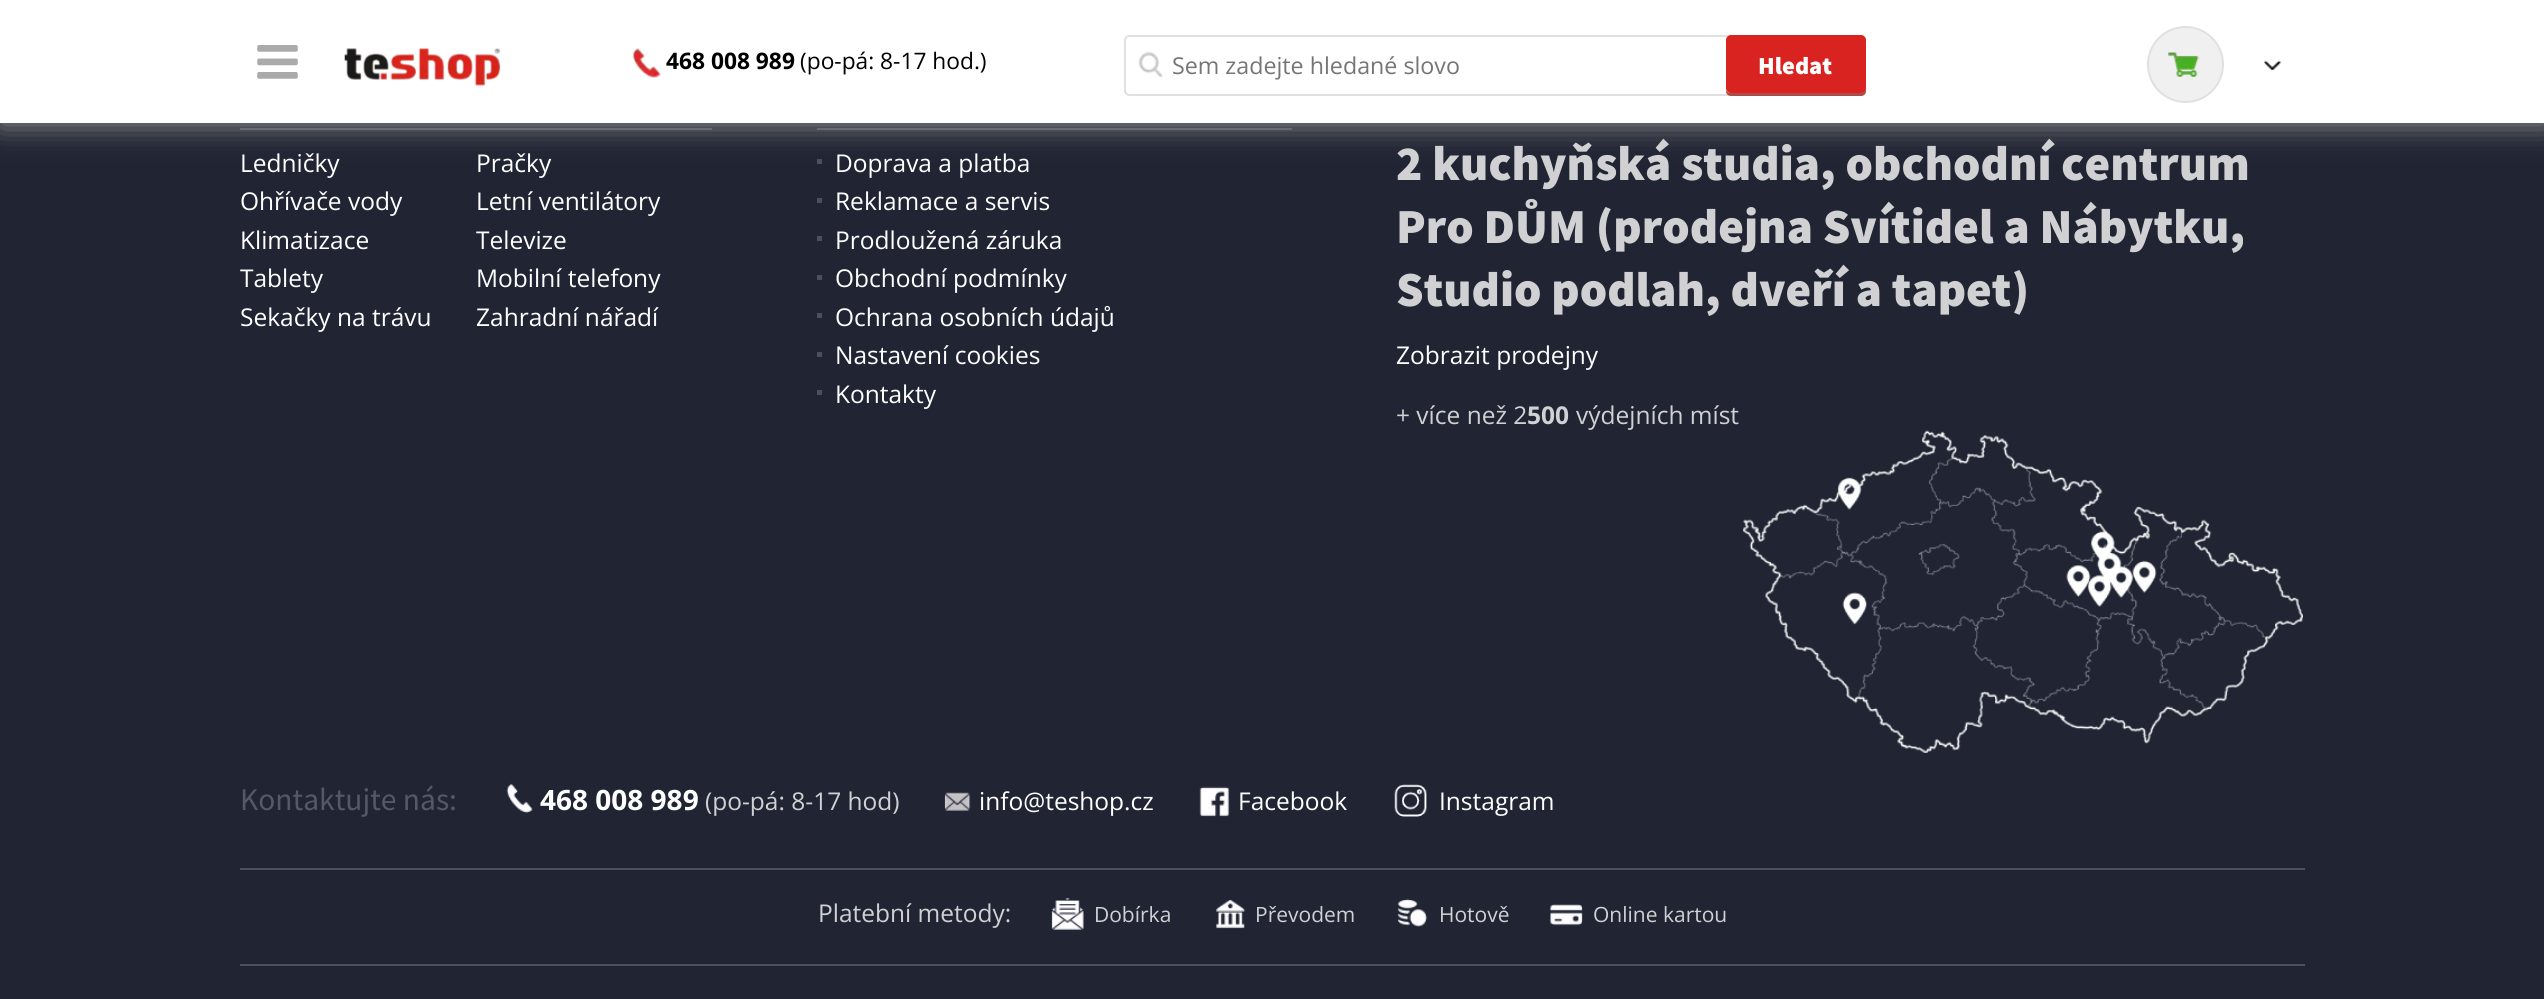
#include <cairo.h>
#include <math.h>
#include <stddef.h>

static cairo_t *ctx;

static void use_color(int r, int g, int b) {
    cairo_set_source_rgb(ctx, r / 255.0, g / 255.0, b / 255.0);
}

static void round_rect(double x, double y, double w, double h, double r) {
    cairo_new_sub_path(ctx);
    cairo_arc(ctx, x + w - r, y + h - r, r, 0, M_PI / 2);
    cairo_arc(ctx, x + r, y + h - r, r, M_PI / 2, M_PI);
    cairo_arc(ctx, x + r, y + r, r, M_PI, 1.5 * M_PI);
    cairo_arc(ctx, x + w - r, y + r, r, 1.5 * M_PI, 2 * M_PI);
    cairo_close_path(ctx);
}

static void shadow(double x, double y, double w, double h, double r, double blur, double alpha) {
    cairo_push_group_with_content(ctx, CAIRO_CONTENT_ALPHA);
    cairo_set_operator(ctx, CAIRO_OPERATOR_SOURCE);
    for (int i = 15; i >= -15 && fmin(w, h) + blur * i / 3 > 0; i -= 2) {
        double e = blur * i / 6;
        cairo_set_source_rgba(ctx, 0, 0, 0, alpha * erfc((i - 1) / 8.5) / 2);
        round_rect(x - e, y - e, w + 2 * e, h + 2 * e, fmax(0, fmin(r + e + blur * .6, fmin(w, h) / 2 + e)));
        cairo_fill(ctx);
    }
    cairo_pattern_t *soft = cairo_pop_group(ctx);
    cairo_mask(ctx, soft);
    cairo_pattern_destroy(soft);
}

static void picture(const char *path, double x, double y, double w, double h) {
    cairo_surface_t *image = cairo_image_surface_create_from_png(path);
    cairo_save(ctx);
    cairo_set_source_surface(ctx, image, x, y);
    cairo_rectangle(ctx, x, y, w, h);
    cairo_fill(ctx);
    cairo_restore(ctx);
    cairo_surface_destroy(image);
}

int main(void) {
    cairo_surface_t *surface = cairo_image_surface_create(CAIRO_FORMAT_RGB24, 2544, 999);
    ctx = cairo_create(surface);
    cairo_font_options_t *options = cairo_font_options_create();
    cairo_font_options_set_hint_metrics(options, CAIRO_HINT_METRICS_OFF);
    cairo_font_options_set_hint_style(options, CAIRO_HINT_STYLE_NONE);
    cairo_set_font_options(ctx, options);
    cairo_set_miter_limit(ctx, 4);
    use_color(32, 36, 51);
    cairo_paint(ctx);
    use_color(77, 80, 91);
    cairo_rectangle(ctx, 240, 128, 472, 2);
    cairo_fill(ctx);
    cairo_rectangle(ctx, 817, 128, 475, 2);
    cairo_fill(ctx);
    cairo_rectangle(ctx, 817, 159, 5, 5);
    cairo_fill(ctx);
    use_color(153, 153, 153);
    shadow(0, -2, 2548, 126, 0, 15, 1);
    use_color(255, 255, 255);
    cairo_rectangle(ctx, 0, 0, 2544, 123);
    cairo_fill(ctx);
    picture("img1.png", 257, 45, 41, 34);
    picture("img2.png", 344, 48, 157, 38);
    picture("img3.png", 632, 48, 29, 30);
    cairo_select_font_face(ctx, "Open Sans", CAIRO_FONT_SLANT_NORMAL, CAIRO_FONT_WEIGHT_BOLD);
    cairo_set_font_size(ctx, 22.75);
    use_color(0, 0, 0);
    cairo_move_to(ctx, 666, 69);
    cairo_show_text(ctx, "468 008 989");
    cairo_select_font_face(ctx, "Open Sans", CAIRO_FONT_SLANT_NORMAL, CAIRO_FONT_WEIGHT_NORMAL);
    cairo_move_to(ctx, 800, 69);
    cairo_show_text(ctx, "(po-pá: 8-17 hod.)");
    cairo_new_path(ctx);
    cairo_move_to(ctx, 1129, 36);
    cairo_line_to(ctx, 1728, 36);
    cairo_line_to(ctx, 1728, 95);
    cairo_line_to(ctx, 1129, 95);
    cairo_curve_to(ctx, 1127, 95, 1125, 93, 1125, 91);
    cairo_line_to(ctx, 1125, 40);
    cairo_curve_to(ctx, 1125, 38, 1127, 36, 1129, 36);
    cairo_close_path(ctx);
    use_color(224, 224, 224);
    cairo_stroke(ctx);
    picture("img4.png", 1138, 51, 25, 27);
    cairo_set_font_size(ctx, 23.25);
    use_color(117, 117, 117);
    cairo_move_to(ctx, 1172, 74);
    cairo_show_text(ctx, "Sem zadejte hledané slovo");
    use_color(173, 77, 75);
    cairo_new_path(ctx);
    cairo_move_to(ctx, 1726, 90);
    cairo_line_to(ctx, 1726, 91);
    cairo_curve_to(ctx, 1726, 94, 1728, 96, 1731, 96);
    cairo_line_to(ctx, 1861, 96);
    cairo_curve_to(ctx, 1864, 96, 1866, 94, 1866, 91);
    cairo_line_to(ctx, 1866, 44);
    cairo_line_to(ctx, 1866, 42);
    cairo_line_to(ctx, 1866, 88);
    cairo_curve_to(ctx, 1866, 90, 1863, 93, 1860, 93);
    cairo_line_to(ctx, 1731, 93);
    cairo_curve_to(ctx, 1729, 93, 1727, 92, 1726, 90);
    cairo_close_path(ctx);
    cairo_fill(ctx);
    use_color(217, 35, 32);
    round_rect(1727, 36, 138, 56, 4);
    cairo_fill_preserve(ctx);
    cairo_stroke(ctx);
    cairo_select_font_face(ctx, "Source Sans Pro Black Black", CAIRO_FONT_SLANT_NORMAL, CAIRO_FONT_WEIGHT_NORMAL);
    cairo_set_font_size(ctx, 24.5);
    use_color(255, 255, 255);
    cairo_move_to(ctx, 1758, 74);
    cairo_show_text(ctx, "Hledat");
    use_color(240, 240, 240);
    cairo_new_path(ctx);
    cairo_arc(ctx, 2185.5, 64.5, 37.5, 0, 2 * M_PI);
    cairo_fill_preserve(ctx);
    use_color(224, 224, 224);
    cairo_stroke(ctx);
    picture("img5.png", 2168, 52, 32, 25);
    picture("img6.png", 2263, 60, 19, 11);
    cairo_select_font_face(ctx, "Open Sans", CAIRO_FONT_SLANT_NORMAL, CAIRO_FONT_WEIGHT_NORMAL);
    use_color(255, 255, 255);
    cairo_move_to(ctx, 240, 172);
    cairo_show_text(ctx, "Ledničky");
    cairo_move_to(ctx, 476, 172);
    cairo_show_text(ctx, "Pračky");
    cairo_move_to(ctx, 240, 210);
    cairo_show_text(ctx, "Ohřívače vody");
    cairo_move_to(ctx, 476, 210);
    cairo_show_text(ctx, "Letní ventilátory");
    cairo_move_to(ctx, 240, 249);
    cairo_show_text(ctx, "Klimatizace");
    cairo_move_to(ctx, 476, 249);
    cairo_show_text(ctx, "Televize");
    cairo_move_to(ctx, 240, 287);
    cairo_show_text(ctx, "Tablety");
    cairo_move_to(ctx, 476, 287);
    cairo_show_text(ctx, "Mobilní telefony");
    cairo_move_to(ctx, 240, 326);
    cairo_show_text(ctx, "Sekačky na trávu");
    cairo_move_to(ctx, 476, 326);
    cairo_show_text(ctx, "Zahradní nářadí");
    cairo_move_to(ctx, 835, 172);
    cairo_show_text(ctx, "Doprava a platba");
    use_color(77, 80, 91);
    cairo_rectangle(ctx, 817, 198, 5, 5);
    cairo_fill(ctx);
    use_color(255, 255, 255);
    cairo_move_to(ctx, 835, 210);
    cairo_show_text(ctx, "Reklamace a servis");
    use_color(77, 80, 91);
    cairo_rectangle(ctx, 817, 236, 5, 5);
    cairo_fill(ctx);
    use_color(255, 255, 255);
    cairo_move_to(ctx, 835, 249);
    cairo_show_text(ctx, "Prodloužená záruka");
    use_color(77, 80, 91);
    cairo_rectangle(ctx, 817, 275, 5, 5);
    cairo_fill(ctx);
    use_color(255, 255, 255);
    cairo_move_to(ctx, 835, 287);
    cairo_show_text(ctx, "Obchodní podmínky");
    use_color(77, 80, 91);
    cairo_rectangle(ctx, 817, 313, 5, 5);
    cairo_fill(ctx);
    use_color(255, 255, 255);
    cairo_move_to(ctx, 835, 326);
    cairo_show_text(ctx, "Ochrana osobních údajů");
    use_color(77, 80, 91);
    cairo_rectangle(ctx, 817, 352, 5, 5);
    cairo_fill(ctx);
    use_color(255, 255, 255);
    cairo_move_to(ctx, 835, 364);
    cairo_show_text(ctx, "Nastavení cookies");
    use_color(77, 80, 91);
    cairo_rectangle(ctx, 817, 390, 5, 5);
    cairo_fill(ctx);
    use_color(255, 255, 255);
    cairo_move_to(ctx, 835, 403);
    cairo_show_text(ctx, "Kontakty");
    cairo_select_font_face(ctx, "Source Sans Pro Black Black", CAIRO_FONT_SLANT_NORMAL, CAIRO_FONT_WEIGHT_NORMAL);
    cairo_set_font_size(ctx, 49);
    use_color(209, 209, 211);
    cairo_move_to(ctx, 1396, 180);
    cairo_show_text(ctx, "2 kuchyňská studia, obchodní centrum");
    cairo_move_to(ctx, 1396, 243);
    cairo_show_text(ctx, "Pro DŮM (prodejna Svítidel a Nábytku,");
    cairo_move_to(ctx, 1396, 306);
    cairo_show_text(ctx, "Studio podlah, dveří a tapet)");
    cairo_select_font_face(ctx, "Open Sans", CAIRO_FONT_SLANT_NORMAL, CAIRO_FONT_WEIGHT_NORMAL);
    cairo_set_font_size(ctx, 24.5);
    use_color(255, 255, 255);
    cairo_move_to(ctx, 1396, 364);
    cairo_show_text(ctx, "Zobrazit prodejny");
    use_color(209, 209, 211);
    cairo_move_to(ctx, 1396, 424);
    cairo_show_text(ctx, "+ více než 2");
    cairo_select_font_face(ctx, "Open Sans", CAIRO_FONT_SLANT_NORMAL, CAIRO_FONT_WEIGHT_BOLD);
    cairo_move_to(ctx, 1527, 424);
    cairo_show_text(ctx, "500");
    cairo_select_font_face(ctx, "Open Sans", CAIRO_FONT_SLANT_NORMAL, CAIRO_FONT_WEIGHT_NORMAL);
    cairo_move_to(ctx, 1576, 424);
    cairo_show_text(ctx, "výdejních míst");
    picture("img7.png", 1743, 430, 560, 323);
    cairo_select_font_face(ctx, "Source Sans Pro", CAIRO_FONT_SLANT_NORMAL, CAIRO_FONT_WEIGHT_NORMAL);
    cairo_set_font_size(ctx, 31.5);
    use_color(85, 88, 101);
    cairo_move_to(ctx, 240, 810);
    cairo_show_text(ctx, "Kontaktujte nás:");
    picture("img8.png", 506, 783, 27, 31);
    cairo_select_font_face(ctx, "Open Sans", CAIRO_FONT_SLANT_NORMAL, CAIRO_FONT_WEIGHT_BOLD);
    cairo_set_font_size(ctx, 28);
    use_color(255, 255, 255);
    cairo_move_to(ctx, 540, 810);
    cairo_show_text(ctx, "468 008 989");
    cairo_select_font_face(ctx, "Open Sans", CAIRO_FONT_SLANT_NORMAL, CAIRO_FONT_WEIGHT_NORMAL);
    cairo_set_font_size(ctx, 24.5);
    use_color(209, 209, 211);
    cairo_move_to(ctx, 705, 810);
    cairo_show_text(ctx, "(po-pá: 8-17 hod)");
    picture("img9.png", 944, 792, 27, 19);
    use_color(255, 255, 255);
    cairo_move_to(ctx, 979, 810);
    cairo_show_text(ctx, "info@teshop.cz");
    picture("img10.png", 1199, 786, 31, 31);
    cairo_move_to(ctx, 1238, 810);
    cairo_show_text(ctx, "Facebook");
    picture("img11.png", 1394, 784, 33, 33);
    cairo_move_to(ctx, 1439, 810);
    cairo_show_text(ctx, "Instagram");
    use_color(77, 80, 91);
    cairo_rectangle(ctx, 240, 868, 2065, 2);
    cairo_fill(ctx);
    use_color(209, 209, 211);
    cairo_move_to(ctx, 818, 922);
    cairo_show_text(ctx, "Platební metody:");
    picture("img12.png", 1051, 898, 33, 32);
    cairo_set_font_size(ctx, 21);
    cairo_move_to(ctx, 1094, 922);
    cairo_show_text(ctx, "Dobírka");
    picture("img13.png", 1216, 899, 30, 30);
    cairo_move_to(ctx, 1255, 922);
    cairo_show_text(ctx, "Převodem");
    picture("img14.png", 1397, 898, 31, 29);
    cairo_move_to(ctx, 1439, 922);
    cairo_show_text(ctx, "Hotově");
    picture("img15.png", 1550, 904, 33, 22);
    cairo_move_to(ctx, 1593, 922);
    cairo_show_text(ctx, "Online kartou");
    use_color(77, 80, 91);
    cairo_rectangle(ctx, 240, 964, 2065, 2);
    cairo_fill(ctx);
    cairo_surface_write_to_png(surface, "result.png");
    cairo_font_options_destroy(options);
    cairo_destroy(ctx);
    cairo_surface_destroy(surface);
    return 0;
}
